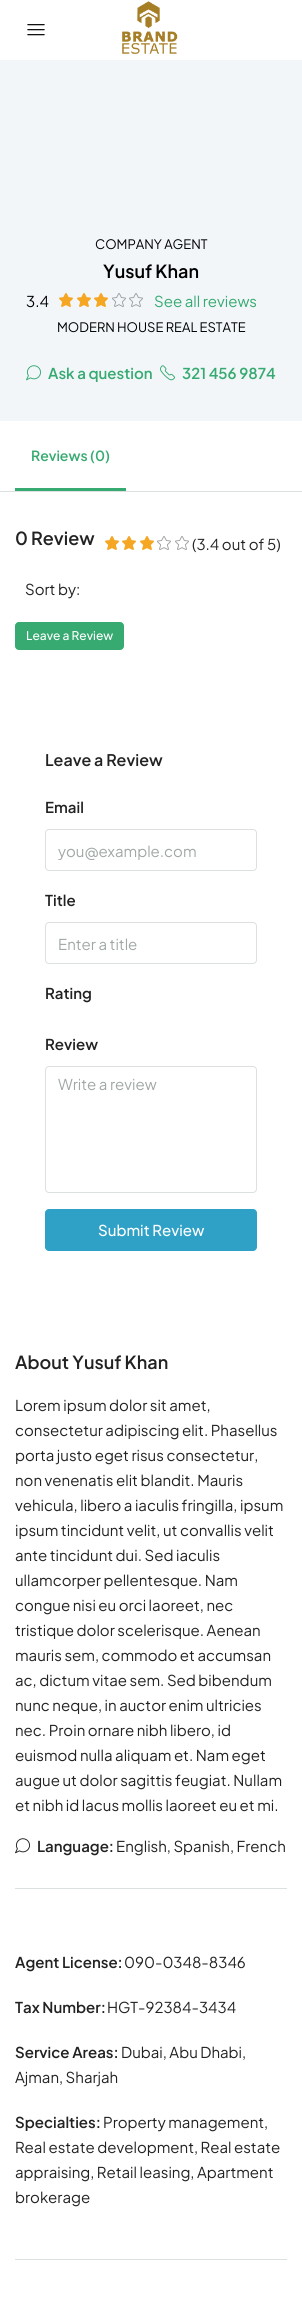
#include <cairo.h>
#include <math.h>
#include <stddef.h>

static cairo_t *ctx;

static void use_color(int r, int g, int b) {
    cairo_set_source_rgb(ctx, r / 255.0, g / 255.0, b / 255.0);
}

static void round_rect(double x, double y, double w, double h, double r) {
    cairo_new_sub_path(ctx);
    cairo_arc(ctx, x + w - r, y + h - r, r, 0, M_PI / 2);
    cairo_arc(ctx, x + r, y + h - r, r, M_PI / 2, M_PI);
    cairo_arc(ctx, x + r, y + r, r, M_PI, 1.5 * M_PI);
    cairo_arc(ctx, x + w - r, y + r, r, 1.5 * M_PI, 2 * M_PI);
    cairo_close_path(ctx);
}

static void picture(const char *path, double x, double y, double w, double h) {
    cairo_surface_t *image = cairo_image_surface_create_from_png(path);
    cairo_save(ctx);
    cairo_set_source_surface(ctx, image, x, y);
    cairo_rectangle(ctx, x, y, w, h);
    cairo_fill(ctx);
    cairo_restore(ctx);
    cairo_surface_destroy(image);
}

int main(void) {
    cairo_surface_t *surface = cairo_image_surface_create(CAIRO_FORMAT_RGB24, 302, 2307);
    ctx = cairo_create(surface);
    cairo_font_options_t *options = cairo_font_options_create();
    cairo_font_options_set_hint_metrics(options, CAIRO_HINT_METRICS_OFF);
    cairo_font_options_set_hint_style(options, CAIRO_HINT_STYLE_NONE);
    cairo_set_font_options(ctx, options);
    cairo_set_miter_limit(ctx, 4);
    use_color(255, 255, 255);
    cairo_paint(ctx);
    picture("img1.png", 27, 24, 18, 12);
    picture("img2.png", 122, 1, 56, 54);
    use_color(242, 246, 249);
    cairo_rectangle(ctx, 0, 60, 302, 361);
    cairo_fill(ctx);
    cairo_select_font_face(ctx, "Plus Jakarta Sans", CAIRO_FONT_SLANT_NORMAL, CAIRO_FONT_WEIGHT_NORMAL);
    cairo_set_font_size(ctx, 13);
    use_color(0, 0, 0);
    cairo_move_to(ctx, 95, 249);
    cairo_show_text(ctx, "COMPANY AGENT");
    cairo_select_font_face(ctx, "Plus Jakarta Sans SemiBold", CAIRO_FONT_SLANT_NORMAL, CAIRO_FONT_WEIGHT_NORMAL);
    cairo_set_font_size(ctx, 18);
    cairo_move_to(ctx, 103, 278);
    cairo_show_text(ctx, "Yusuf Khan");
    cairo_select_font_face(ctx, "Plus Jakarta Sans", CAIRO_FONT_SLANT_NORMAL, CAIRO_FONT_WEIGHT_NORMAL);
    cairo_set_font_size(ctx, 15);
    cairo_move_to(ctx, 26, 307);
    cairo_show_text(ctx, "3.4");
    picture("img3.png", 59, 293, 14, 14);
    picture("img3.png", 77, 293, 14, 14);
    picture("img3.png", 94, 293, 14, 14);
    picture("img4.png", 112, 293, 14, 14);
    picture("img4.png", 129, 293, 14, 14);
    use_color(54, 170, 113);
    cairo_move_to(ctx, 154, 307);
    cairo_show_text(ctx, "See all reviews");
    cairo_set_font_size(ctx, 13);
    use_color(0, 0, 0);
    cairo_move_to(ctx, 57, 332);
    cairo_show_text(ctx, "MODERN HOUSE REAL ESTATE");
    picture("img5.png", 26, 365, 15, 16);
    cairo_select_font_face(ctx, "Plus Jakarta Sans SemiBold", CAIRO_FONT_SLANT_NORMAL, CAIRO_FONT_WEIGHT_NORMAL);
    cairo_set_font_size(ctx, 15);
    use_color(54, 170, 113);
    cairo_move_to(ctx, 48, 379);
    cairo_show_text(ctx, "Ask a question");
    picture("img6.png", 160, 365, 15, 16);
    cairo_move_to(ctx, 182, 379);
    cairo_show_text(ctx, "321 456 9874");
    use_color(220, 224, 224);
    cairo_rectangle(ctx, 0, 491, 302, 1);
    cairo_fill(ctx);
    use_color(54, 170, 113);
    cairo_rectangle(ctx, 15, 488, 111, 3);
    cairo_fill(ctx);
    cairo_set_font_size(ctx, 14);
    cairo_move_to(ctx, 31, 461);
    cairo_show_text(ctx, "Reviews (0)");
    cairo_set_font_size(ctx, 18);
    use_color(34, 34, 34);
    cairo_move_to(ctx, 15, 545);
    cairo_show_text(ctx, "0 Review");
    picture("img7.png", 105, 536, 14, 14);
    picture("img7.png", 122, 536, 14, 14);
    picture("img7.png", 140, 536, 14, 14);
    picture("img8.png", 157, 536, 14, 14);
    picture("img8.png", 175, 536, 14, 14);
    cairo_select_font_face(ctx, "Plus Jakarta Sans", CAIRO_FONT_SLANT_NORMAL, CAIRO_FONT_WEIGHT_NORMAL);
    cairo_set_font_size(ctx, 15);
    cairo_move_to(ctx, 192, 550);
    cairo_show_text(ctx, "(3.4 out of 5)");
    cairo_move_to(ctx, 25, 595);
    cairo_show_text(ctx, "Sort by:");
    use_color(54, 170, 113);
    round_rect(15.5, 622.5, 108, 27, 3.5);
    cairo_fill_preserve(ctx);
    cairo_set_line_width(ctx, 1);
    cairo_stroke(ctx);
    cairo_select_font_face(ctx, "Plus Jakarta Sans Medium", CAIRO_FONT_SLANT_NORMAL, CAIRO_FONT_WEIGHT_NORMAL);
    cairo_set_font_size(ctx, 12);
    use_color(255, 255, 255);
    cairo_move_to(ctx, 26, 640);
    cairo_show_text(ctx, "Leave a Review");
    cairo_select_font_face(ctx, "Plus Jakarta Sans SemiBold", CAIRO_FONT_SLANT_NORMAL, CAIRO_FONT_WEIGHT_NORMAL);
    cairo_set_font_size(ctx, 16);
    use_color(34, 34, 34);
    cairo_move_to(ctx, 45, 766);
    cairo_show_text(ctx, "Leave a Review");
    cairo_set_font_size(ctx, 15);
    cairo_move_to(ctx, 45, 813);
    cairo_show_text(ctx, "Email");
    round_rect(45.5, 829.5, 211, 41, 3.5);
    use_color(220, 224, 224);
    cairo_stroke(ctx);
    cairo_save(ctx);
    cairo_rectangle(ctx, 58, 841, 186, 19);
    cairo_clip(ctx);
    cairo_select_font_face(ctx, "Plus Jakarta Sans", CAIRO_FONT_SLANT_NORMAL, CAIRO_FONT_WEIGHT_NORMAL);
    use_color(161, 167, 168);
    cairo_move_to(ctx, 58, 857);
    cairo_show_text(ctx, "you@example.com");
    cairo_restore(ctx);
    use_color(34, 34, 34);
    cairo_move_to(ctx, 45, 906);
    cairo_show_text(ctx, "Title");
    round_rect(45.5, 922.5, 211, 41, 3.5);
    use_color(220, 224, 224);
    cairo_stroke(ctx);
    cairo_select_font_face(ctx, "Plus Jakarta Sans", CAIRO_FONT_SLANT_NORMAL, CAIRO_FONT_WEIGHT_NORMAL);
    use_color(161, 167, 168);
    cairo_move_to(ctx, 58, 950);
    cairo_show_text(ctx, "Enter a title");
    cairo_select_font_face(ctx, "Plus Jakarta Sans SemiBold", CAIRO_FONT_SLANT_NORMAL, CAIRO_FONT_WEIGHT_NORMAL);
    use_color(34, 34, 34);
    cairo_move_to(ctx, 45, 999);
    cairo_show_text(ctx, "Rating");
    cairo_move_to(ctx, 45, 1050);
    cairo_show_text(ctx, "Review");
    round_rect(45.5, 1066.5, 211, 126, 3.5);
    use_color(220, 224, 224);
    cairo_stroke(ctx);
    cairo_select_font_face(ctx, "Plus Jakarta Sans", CAIRO_FONT_SLANT_NORMAL, CAIRO_FONT_WEIGHT_NORMAL);
    use_color(161, 167, 168);
    cairo_move_to(ctx, 58, 1090);
    cairo_show_text(ctx, "Write a review");
    use_color(47, 161, 198);
    round_rect(45.5, 1209.5, 211, 41, 3.5);
    cairo_fill_preserve(ctx);
    cairo_stroke(ctx);
    cairo_select_font_face(ctx, "Plus Jakarta Sans Medium", CAIRO_FONT_SLANT_NORMAL, CAIRO_FONT_WEIGHT_NORMAL);
    use_color(255, 255, 255);
    cairo_move_to(ctx, 98, 1236);
    cairo_show_text(ctx, "Submit Review");
    use_color(220, 224, 224);
    cairo_rectangle(ctx, 15, 1888, 272, 1);
    cairo_fill(ctx);
    cairo_select_font_face(ctx, "Plus Jakarta Sans SemiBold", CAIRO_FONT_SLANT_NORMAL, CAIRO_FONT_WEIGHT_NORMAL);
    cairo_set_font_size(ctx, 18);
    use_color(34, 34, 34);
    cairo_move_to(ctx, 15, 1369);
    cairo_show_text(ctx, "About Yusuf Khan");
    cairo_select_font_face(ctx, "Plus Jakarta Sans", CAIRO_FONT_SLANT_NORMAL, CAIRO_FONT_WEIGHT_NORMAL);
    cairo_set_font_size(ctx, 15);
    cairo_move_to(ctx, 15, 1411);
    cairo_show_text(ctx, "Lorem ipsum dolor sit amet,");
    cairo_move_to(ctx, 15, 1436);
    cairo_show_text(ctx, "consectetur adipiscing elit. Phasellus");
    cairo_move_to(ctx, 15, 1461);
    cairo_show_text(ctx, "porta justo eget risus consectetur,");
    cairo_move_to(ctx, 15, 1486);
    cairo_show_text(ctx, "non venenatis elit blandit. Mauris");
    cairo_move_to(ctx, 15, 1511);
    cairo_show_text(ctx, "vehicula, libero a iaculis fringilla, ipsum");
    cairo_move_to(ctx, 15, 1536);
    cairo_show_text(ctx, "ipsum tincidunt velit, ut convallis velit");
    cairo_move_to(ctx, 15, 1561);
    cairo_show_text(ctx, "ante tincidunt dui. Sed iaculis");
    cairo_move_to(ctx, 15, 1586);
    cairo_show_text(ctx, "ullamcorper pellentesque. Nam");
    cairo_move_to(ctx, 15, 1611);
    cairo_show_text(ctx, "congue nisi eu orci laoreet, nec");
    cairo_move_to(ctx, 15, 1636);
    cairo_show_text(ctx, "tristique dolor scelerisque. Aenean");
    cairo_move_to(ctx, 15, 1661);
    cairo_show_text(ctx, "mauris sem, commodo et accumsan");
    cairo_move_to(ctx, 15, 1686);
    cairo_show_text(ctx, "ac, dictum vitae sem. Sed bibendum");
    cairo_move_to(ctx, 15, 1711);
    cairo_show_text(ctx, "nunc neque, in auctor enim ultricies");
    cairo_move_to(ctx, 15, 1736);
    cairo_show_text(ctx, "nec. Proin ornare nibh libero, id");
    cairo_move_to(ctx, 15, 1761);
    cairo_show_text(ctx, "euismod nulla aliquam et. Nam eget");
    cairo_move_to(ctx, 15, 1786);
    cairo_show_text(ctx, "augue ut dolor sagittis feugiat. Nullam");
    cairo_move_to(ctx, 15, 1811);
    cairo_show_text(ctx, "et nibh id lacus mollis laoreet eu et mi.");
    picture("img9.png", 15, 1838, 15, 16);
    cairo_select_font_face(ctx, "Plus Jakarta Sans SemiBold", CAIRO_FONT_SLANT_NORMAL, CAIRO_FONT_WEIGHT_NORMAL);
    cairo_move_to(ctx, 37, 1852);
    cairo_show_text(ctx, "Language:");
    cairo_select_font_face(ctx, "Plus Jakarta Sans", CAIRO_FONT_SLANT_NORMAL, CAIRO_FONT_WEIGHT_NORMAL);
    cairo_move_to(ctx, 116, 1852);
    cairo_show_text(ctx, "English, Spanish, French");
    use_color(220, 224, 224);
    cairo_rectangle(ctx, 15, 2259, 272, 1);
    cairo_fill(ctx);
    cairo_select_font_face(ctx, "Plus Jakarta Sans SemiBold", CAIRO_FONT_SLANT_NORMAL, CAIRO_FONT_WEIGHT_NORMAL);
    use_color(34, 34, 34);
    cairo_move_to(ctx, 15, 1968);
    cairo_show_text(ctx, "Agent License:");
    cairo_select_font_face(ctx, "Plus Jakarta Sans", CAIRO_FONT_SLANT_NORMAL, CAIRO_FONT_WEIGHT_NORMAL);
    cairo_move_to(ctx, 124, 1968);
    cairo_show_text(ctx, "090-0348-8346");
    cairo_select_font_face(ctx, "Plus Jakarta Sans SemiBold", CAIRO_FONT_SLANT_NORMAL, CAIRO_FONT_WEIGHT_NORMAL);
    cairo_move_to(ctx, 15, 2013);
    cairo_show_text(ctx, "Tax Number:");
    cairo_select_font_face(ctx, "Plus Jakarta Sans", CAIRO_FONT_SLANT_NORMAL, CAIRO_FONT_WEIGHT_NORMAL);
    cairo_move_to(ctx, 107, 2013);
    cairo_show_text(ctx, "HGT-92384-3434");
    cairo_select_font_face(ctx, "Plus Jakarta Sans SemiBold", CAIRO_FONT_SLANT_NORMAL, CAIRO_FONT_WEIGHT_NORMAL);
    cairo_move_to(ctx, 15, 2058);
    cairo_show_text(ctx, "Service Areas:");
    cairo_select_font_face(ctx, "Plus Jakarta Sans", CAIRO_FONT_SLANT_NORMAL, CAIRO_FONT_WEIGHT_NORMAL);
    cairo_move_to(ctx, 121, 2058);
    cairo_show_text(ctx, "Dubai, Abu Dhabi,");
    cairo_move_to(ctx, 15, 2083);
    cairo_show_text(ctx, "Ajman, Sharjah");
    cairo_select_font_face(ctx, "Plus Jakarta Sans SemiBold", CAIRO_FONT_SLANT_NORMAL, CAIRO_FONT_WEIGHT_NORMAL);
    cairo_move_to(ctx, 15, 2128);
    cairo_show_text(ctx, "Specialties:");
    cairo_select_font_face(ctx, "Plus Jakarta Sans", CAIRO_FONT_SLANT_NORMAL, CAIRO_FONT_WEIGHT_NORMAL);
    cairo_move_to(ctx, 103, 2128);
    cairo_show_text(ctx, "Property management,");
    cairo_move_to(ctx, 15, 2153);
    cairo_show_text(ctx, "Real estate development, Real estate");
    cairo_move_to(ctx, 15, 2178);
    cairo_show_text(ctx, "appraising, Retail leasing, Apartment");
    cairo_move_to(ctx, 15, 2203);
    cairo_show_text(ctx, "brokerage");
    cairo_surface_write_to_png(surface, "result.png");
    cairo_font_options_destroy(options);
    cairo_destroy(ctx);
    cairo_surface_destroy(surface);
    return 0;
}
